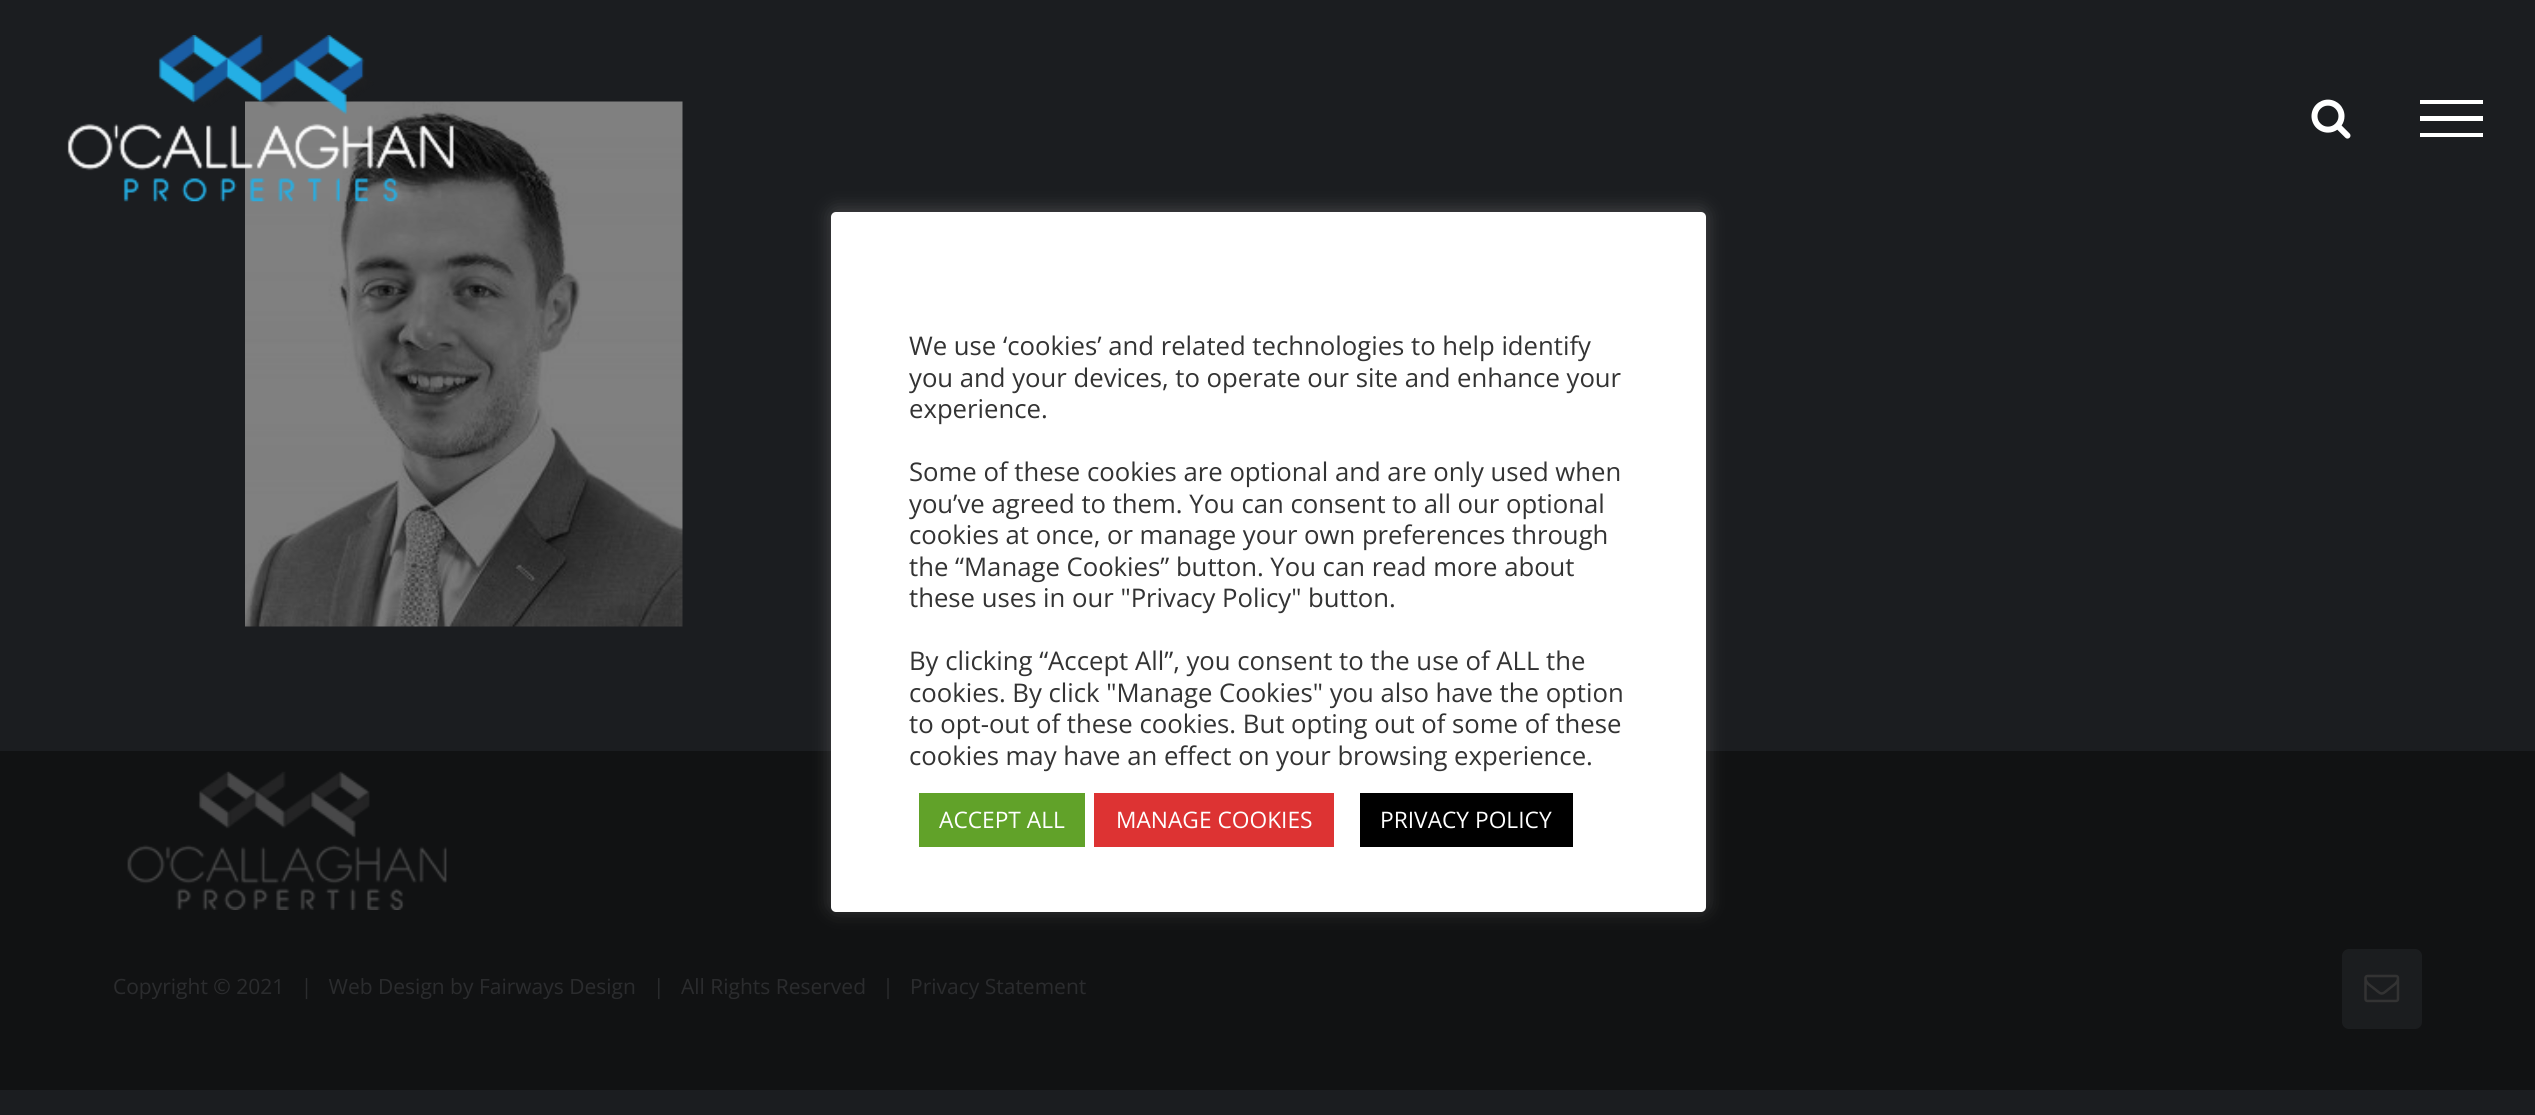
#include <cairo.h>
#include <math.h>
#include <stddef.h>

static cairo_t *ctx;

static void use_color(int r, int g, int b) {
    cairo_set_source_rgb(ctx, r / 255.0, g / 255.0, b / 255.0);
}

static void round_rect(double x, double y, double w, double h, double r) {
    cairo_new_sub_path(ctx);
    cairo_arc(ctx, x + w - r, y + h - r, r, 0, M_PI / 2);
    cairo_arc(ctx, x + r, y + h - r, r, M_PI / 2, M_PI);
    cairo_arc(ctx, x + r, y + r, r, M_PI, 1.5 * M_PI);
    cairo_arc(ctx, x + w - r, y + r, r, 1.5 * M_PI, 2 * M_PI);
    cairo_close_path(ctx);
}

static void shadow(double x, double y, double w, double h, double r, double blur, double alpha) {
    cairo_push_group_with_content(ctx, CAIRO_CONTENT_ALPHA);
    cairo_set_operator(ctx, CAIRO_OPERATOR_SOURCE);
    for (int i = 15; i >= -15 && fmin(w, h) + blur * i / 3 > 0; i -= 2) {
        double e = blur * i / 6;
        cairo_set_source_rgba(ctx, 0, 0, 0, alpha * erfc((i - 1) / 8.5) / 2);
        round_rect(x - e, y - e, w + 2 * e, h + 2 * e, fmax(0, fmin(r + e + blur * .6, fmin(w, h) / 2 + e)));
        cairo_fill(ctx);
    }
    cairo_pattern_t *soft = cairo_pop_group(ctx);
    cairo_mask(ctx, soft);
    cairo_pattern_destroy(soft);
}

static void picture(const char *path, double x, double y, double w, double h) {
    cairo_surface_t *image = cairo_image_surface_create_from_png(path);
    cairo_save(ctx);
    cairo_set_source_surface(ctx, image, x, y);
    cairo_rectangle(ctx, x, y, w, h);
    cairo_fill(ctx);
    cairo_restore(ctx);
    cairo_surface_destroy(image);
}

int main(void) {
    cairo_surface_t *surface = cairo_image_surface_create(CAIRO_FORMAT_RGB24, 2535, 1115);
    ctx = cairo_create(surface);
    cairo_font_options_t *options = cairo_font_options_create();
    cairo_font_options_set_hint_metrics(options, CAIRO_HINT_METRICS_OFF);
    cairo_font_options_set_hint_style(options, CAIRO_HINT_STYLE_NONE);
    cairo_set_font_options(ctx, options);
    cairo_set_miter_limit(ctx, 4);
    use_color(27, 29, 32);
    cairo_paint(ctx);
    use_color(17, 18, 19);
    cairo_rectangle(ctx, 0, 751, 2535, 339);
    cairo_fill(ctx);
    use_color(172, 171, 171);
    shadow(831, 210, 875, 700, 5, 9, 0.3);
    use_color(255, 255, 255);
    round_rect(831, 212, 875, 700, 5);
    cairo_fill(ctx);
    cairo_select_font_face(ctx, "Open Sans", CAIRO_FONT_SLANT_NORMAL, CAIRO_FONT_WEIGHT_NORMAL);
    cairo_set_font_size(ctx, 25.7);
    use_color(51, 51, 51);
    cairo_move_to(ctx, 909, 355);
    cairo_show_text(ctx, "We use ‘cookies’ and related technologies to help identify");
    cairo_move_to(ctx, 909, 387);
    cairo_show_text(ctx, "you and your devices, to operate our site and enhance your");
    cairo_move_to(ctx, 909, 418);
    cairo_show_text(ctx, "experience.");
    cairo_move_to(ctx, 909, 481);
    cairo_show_text(ctx, "Some of these cookies are optional and are only used when");
    cairo_move_to(ctx, 909, 513);
    cairo_show_text(ctx, "you’ve agreed to them. You can consent to all our optional");
    cairo_move_to(ctx, 909, 544);
    cairo_show_text(ctx, "cookies at once, or manage your own preferences through");
    cairo_move_to(ctx, 909, 576);
    cairo_show_text(ctx, "the “Manage Cookies” button. You can read more about");
    cairo_move_to(ctx, 909, 607);
    cairo_show_text(ctx, "these uses in our \"Privacy Policy\" button.");
    cairo_move_to(ctx, 909, 670);
    cairo_show_text(ctx, "By clicking “Accept All”, you consent to the use of ALL the");
    cairo_move_to(ctx, 909, 702);
    cairo_show_text(ctx, "cookies. By click \"Manage Cookies\" you also have the option");
    cairo_move_to(ctx, 909, 733);
    cairo_show_text(ctx, "to opt-out of these cookies. But opting out of some of these");
    cairo_move_to(ctx, 909, 765);
    cairo_show_text(ctx, "cookies may have an effect on your browsing experience.");
    use_color(97, 162, 41);
    cairo_rectangle(ctx, 919, 793, 166, 54);
    cairo_fill(ctx);
    cairo_set_font_size(ctx, 22.75);
    use_color(255, 255, 255);
    cairo_move_to(ctx, 939, 828);
    cairo_show_text(ctx, "ACCEPT ALL");
    use_color(221, 51, 51);
    cairo_rectangle(ctx, 1094, 793, 240, 54);
    cairo_fill(ctx);
    use_color(255, 255, 255);
    cairo_move_to(ctx, 1116, 828);
    cairo_show_text(ctx, "MANAGE COOKIES");
    use_color(0, 0, 0);
    cairo_rectangle(ctx, 1360, 793, 213, 54);
    cairo_fill(ctx);
    use_color(255, 255, 255);
    cairo_move_to(ctx, 1380, 828);
    cairo_show_text(ctx, "PRIVACY POLICY");
    picture("img3.png", 245, 101, 438, 526);
    picture("img1.png", 67, 35, 387, 167);
    picture("img2.png", 2311, 99, 40, 40);
    cairo_rectangle(ctx, 2420, 100, 63, 4);
    cairo_fill(ctx);
    cairo_rectangle(ctx, 2420, 116, 63, 5);
    cairo_fill(ctx);
    cairo_rectangle(ctx, 2420, 133, 63, 4);
    cairo_fill(ctx);
    picture("img4.png", 127, 771, 320, 139);
    cairo_set_font_size(ctx, 21);
    use_color(43, 44, 46);
    cairo_move_to(ctx, 113, 994);
    cairo_show_text(ctx, "Copyright © 2021   |   Web Design by Fairways Design");
    cairo_move_to(ctx, 653, 994);
    cairo_show_text(ctx, "|   All Rights Reserved   |");
    cairo_move_to(ctx, 910, 994);
    cairo_show_text(ctx, "Privacy Statement");
    use_color(27, 29, 31);
    round_rect(2343, 950, 78, 78, 6);
    cairo_fill_preserve(ctx);
    cairo_stroke(ctx);
    picture("img5.png", 2364, 974, 36, 29);
    cairo_surface_write_to_png(surface, "result.png");
    cairo_font_options_destroy(options);
    cairo_destroy(ctx);
    cairo_surface_destroy(surface);
    return 0;
}
